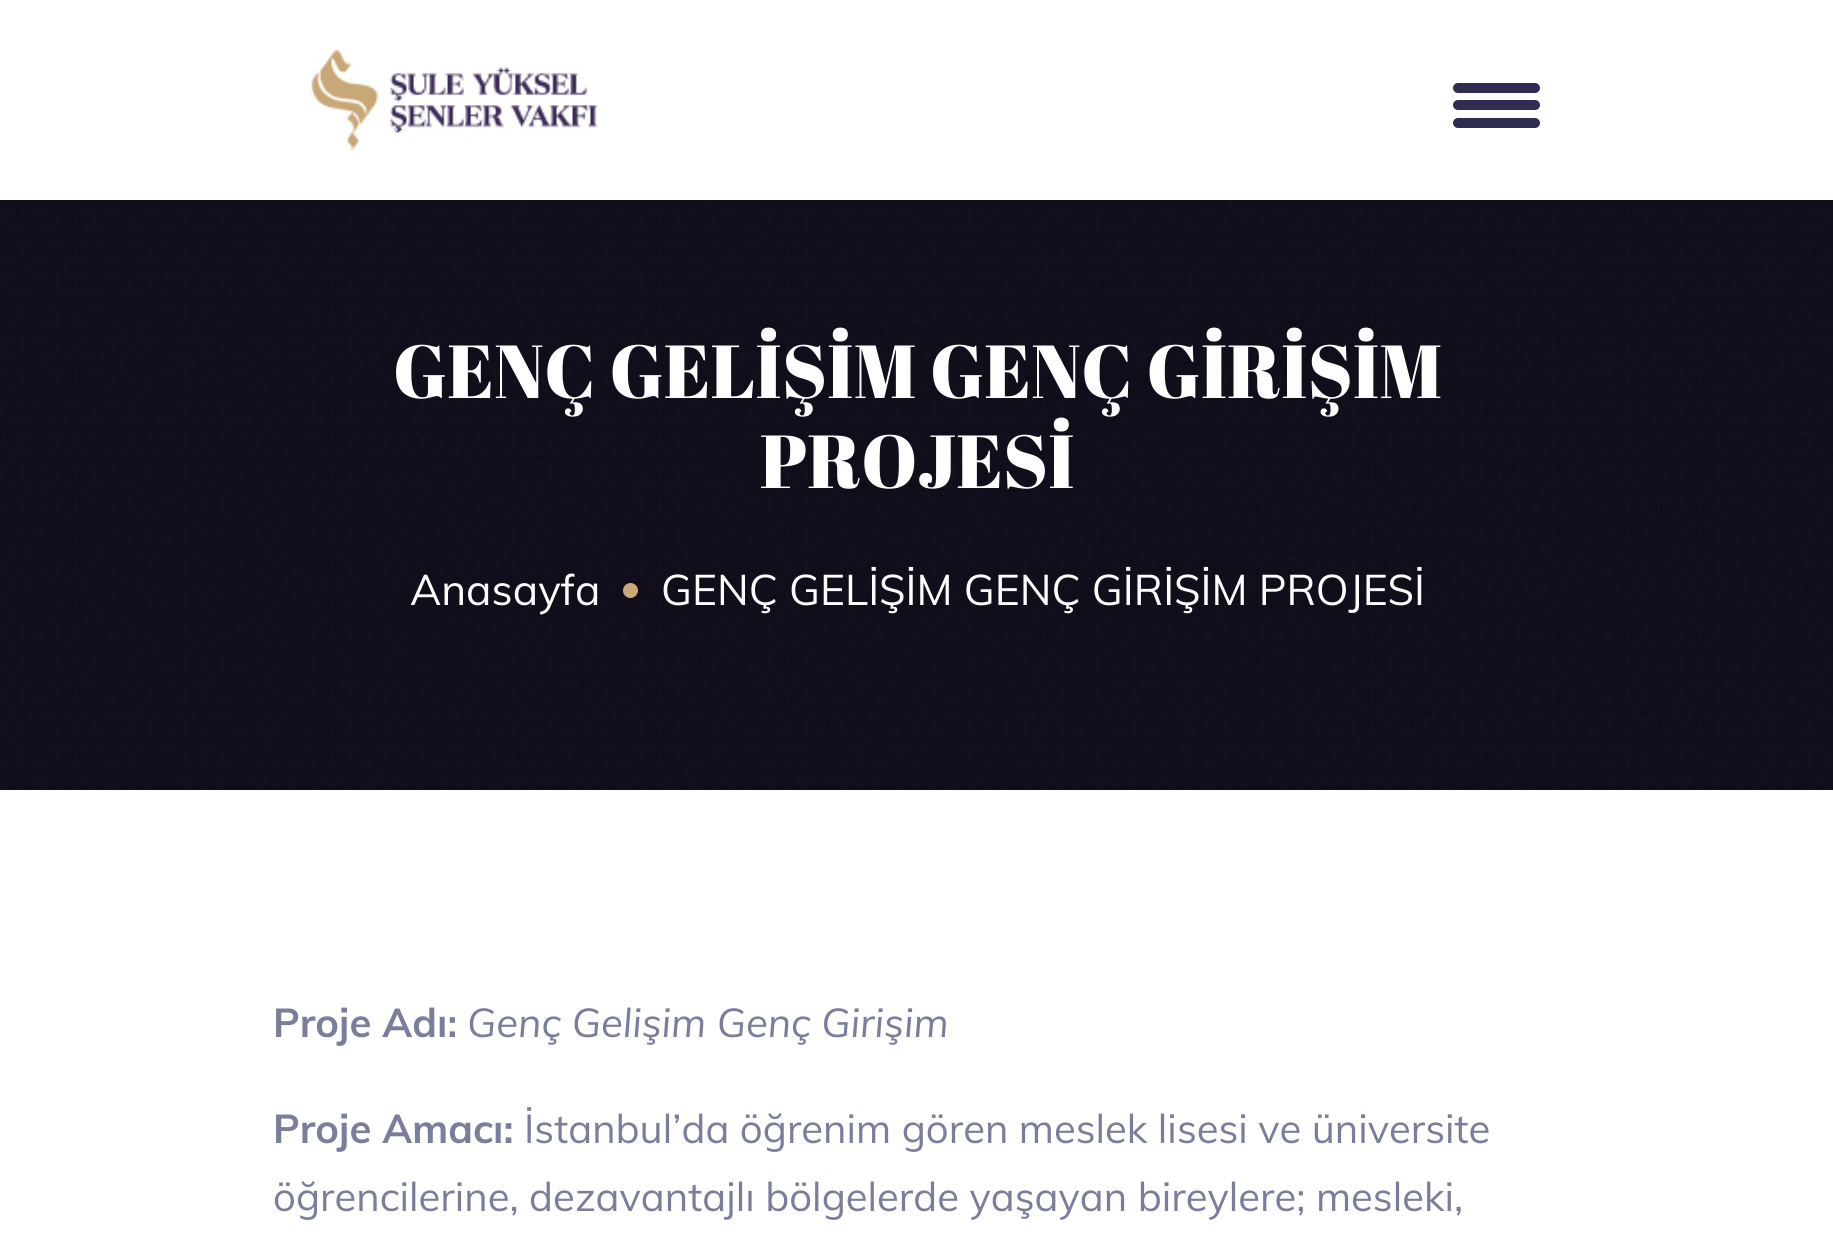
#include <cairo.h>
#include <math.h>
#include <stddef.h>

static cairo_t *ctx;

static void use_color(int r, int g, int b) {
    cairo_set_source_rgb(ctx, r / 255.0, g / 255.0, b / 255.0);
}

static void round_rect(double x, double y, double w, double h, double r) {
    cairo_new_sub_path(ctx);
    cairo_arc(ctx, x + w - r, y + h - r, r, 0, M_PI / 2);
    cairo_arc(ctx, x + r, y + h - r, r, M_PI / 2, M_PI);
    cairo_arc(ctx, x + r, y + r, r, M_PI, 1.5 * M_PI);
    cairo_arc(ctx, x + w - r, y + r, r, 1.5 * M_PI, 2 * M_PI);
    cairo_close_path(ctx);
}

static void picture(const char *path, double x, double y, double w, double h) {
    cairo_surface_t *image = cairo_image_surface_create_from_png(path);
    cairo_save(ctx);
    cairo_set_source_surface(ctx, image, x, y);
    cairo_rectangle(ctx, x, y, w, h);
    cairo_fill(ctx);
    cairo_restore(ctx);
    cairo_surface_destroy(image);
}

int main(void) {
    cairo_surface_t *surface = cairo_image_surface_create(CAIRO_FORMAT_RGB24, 1833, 1239);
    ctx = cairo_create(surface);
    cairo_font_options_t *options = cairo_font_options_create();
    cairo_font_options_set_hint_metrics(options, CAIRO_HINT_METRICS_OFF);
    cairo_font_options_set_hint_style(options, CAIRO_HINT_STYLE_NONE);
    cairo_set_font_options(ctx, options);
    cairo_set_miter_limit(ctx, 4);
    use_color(255, 255, 255);
    cairo_paint(ctx);
    picture("img1.png", 311, 49, 287, 102);
    use_color(47, 44, 82);
    round_rect(1453, 83, 87, 10, 5);
    cairo_fill(ctx);
    round_rect(1453, 100, 87, 10, 5);
    cairo_fill(ctx);
    round_rect(1453, 118, 87, 10, 5);
    cairo_fill(ctx);
    picture("img2.png", 0, 200, 1833, 590);
    cairo_select_font_face(ctx, "Abril Fatface", CAIRO_FONT_SLANT_NORMAL, CAIRO_FONT_WEIGHT_NORMAL);
    cairo_set_font_size(ctx, 75);
    use_color(255, 255, 255);
    cairo_move_to(ctx, 393, 398);
    cairo_show_text(ctx, "GENÇ GELİŞİM GENÇ GİRİŞİM");
    cairo_move_to(ctx, 760, 488);
    cairo_show_text(ctx, "PROJESİ");
    cairo_select_font_face(ctx, "Muli", CAIRO_FONT_SLANT_NORMAL, CAIRO_FONT_WEIGHT_NORMAL);
    cairo_set_font_size(ctx, 42.5);
    cairo_move_to(ctx, 410, 605);
    cairo_show_text(ctx, "Anasayfa");
    use_color(202, 169, 120);
    cairo_new_path(ctx);
    cairo_arc(ctx, 630.5, 590.5, 7.5, 0, 2 * M_PI);
    cairo_fill(ctx);
    use_color(255, 255, 255);
    cairo_move_to(ctx, 661, 605);
    cairo_show_text(ctx, "GENÇ GELİŞİM GENÇ GİRİŞİM PROJESİ");
    cairo_select_font_face(ctx, "Muli", CAIRO_FONT_SLANT_NORMAL, CAIRO_FONT_WEIGHT_BOLD);
    cairo_set_font_size(ctx, 40);
    use_color(122, 126, 154);
    cairo_move_to(ctx, 273, 1037);
    cairo_show_text(ctx, "Proje Adı:");
    cairo_select_font_face(ctx, "Muli", CAIRO_FONT_SLANT_ITALIC, CAIRO_FONT_WEIGHT_NORMAL);
    cairo_move_to(ctx, 467, 1037);
    cairo_show_text(ctx, "Genç Gelişim Genç Girişim");
    cairo_select_font_face(ctx, "Muli", CAIRO_FONT_SLANT_NORMAL, CAIRO_FONT_WEIGHT_BOLD);
    cairo_move_to(ctx, 273, 1143);
    cairo_show_text(ctx, "Proje Amacı:");
    cairo_select_font_face(ctx, "Muli", CAIRO_FONT_SLANT_NORMAL, CAIRO_FONT_WEIGHT_NORMAL);
    cairo_move_to(ctx, 524, 1143);
    cairo_show_text(ctx, "İstanbul’da öğrenim gören meslek lisesi ve üniversite");
    cairo_move_to(ctx, 273, 1211);
    cairo_show_text(ctx, "öğrencilerine, dezavantajlı bölgelerde yaşayan bireylere; mesleki,");
    cairo_surface_write_to_png(surface, "result.png");
    cairo_font_options_destroy(options);
    cairo_destroy(ctx);
    cairo_surface_destroy(surface);
    return 0;
}
